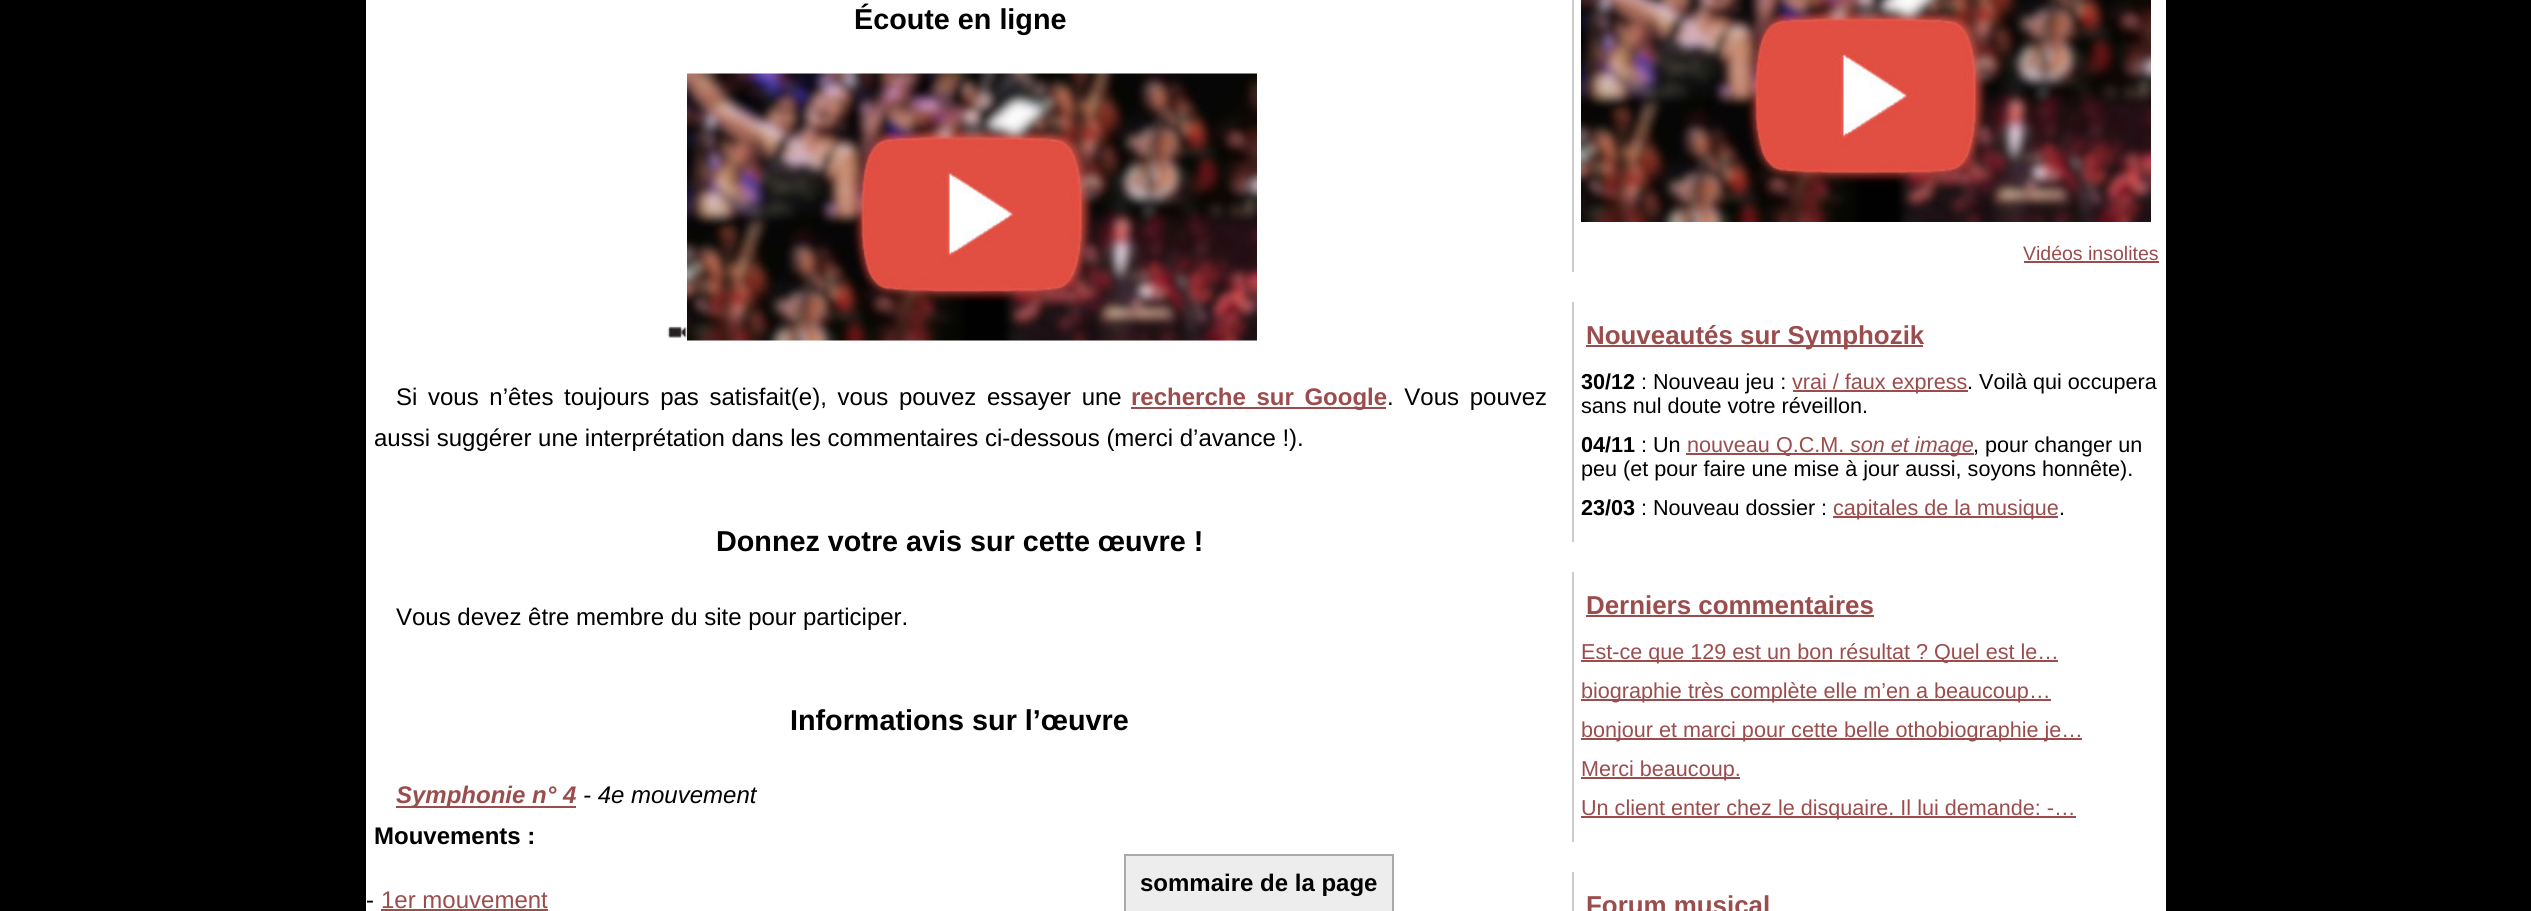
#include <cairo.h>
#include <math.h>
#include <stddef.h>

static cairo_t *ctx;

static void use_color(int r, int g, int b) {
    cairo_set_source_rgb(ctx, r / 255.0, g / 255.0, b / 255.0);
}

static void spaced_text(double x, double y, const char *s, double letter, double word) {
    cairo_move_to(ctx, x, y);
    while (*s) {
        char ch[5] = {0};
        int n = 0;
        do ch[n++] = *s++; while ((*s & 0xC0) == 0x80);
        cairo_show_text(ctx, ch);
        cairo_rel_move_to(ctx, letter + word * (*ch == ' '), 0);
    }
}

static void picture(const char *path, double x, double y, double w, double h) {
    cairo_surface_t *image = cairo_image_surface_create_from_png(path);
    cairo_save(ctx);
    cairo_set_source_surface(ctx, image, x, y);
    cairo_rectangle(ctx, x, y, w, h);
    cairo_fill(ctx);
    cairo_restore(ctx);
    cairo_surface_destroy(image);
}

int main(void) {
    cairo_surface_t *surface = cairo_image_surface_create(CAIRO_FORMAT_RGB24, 2531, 911);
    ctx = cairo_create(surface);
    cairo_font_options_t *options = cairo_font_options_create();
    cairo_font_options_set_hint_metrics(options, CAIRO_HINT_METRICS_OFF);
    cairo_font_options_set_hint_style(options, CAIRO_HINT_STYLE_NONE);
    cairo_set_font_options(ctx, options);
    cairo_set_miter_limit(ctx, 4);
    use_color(0, 0, 0);
    cairo_paint(ctx);
    use_color(255, 255, 255);
    cairo_rectangle(ctx, 366, 0, 1800, 911);
    cairo_fill(ctx);
    cairo_select_font_face(ctx, "Liberation Sans", CAIRO_FONT_SLANT_NORMAL, CAIRO_FONT_WEIGHT_BOLD);
    cairo_set_font_size(ctx, 28.75);
    use_color(0, 0, 0);
    cairo_move_to(ctx, 854, 29);
    cairo_show_text(ctx, "Écoute en ligne");
    picture("img1.png", 667, 326, 20, 12);
    picture("img2.png", 687, 73, 570, 268);
    cairo_select_font_face(ctx, "Liberation Sans", CAIRO_FONT_SLANT_NORMAL, CAIRO_FONT_WEIGHT_NORMAL);
    cairo_set_font_size(ctx, 24);
    spaced_text(396, 405, "Si vous n’êtes toujours pas satisfait(e), vous pouvez essayer une", 0, 4);
    use_color(155, 77, 77);
    cairo_rectangle(ctx, 1131, 407, 255, 2);
    cairo_fill(ctx);
    cairo_select_font_face(ctx, "Liberation Sans", CAIRO_FONT_SLANT_NORMAL, CAIRO_FONT_WEIGHT_BOLD);
    spaced_text(1131, 405, "recherche sur Google", 0, 4);
    cairo_select_font_face(ctx, "Liberation Sans", CAIRO_FONT_SLANT_NORMAL, CAIRO_FONT_WEIGHT_NORMAL);
    use_color(0, 0, 0);
    spaced_text(1387, 405, ". Vous pouvez", 0, 4);
    cairo_move_to(ctx, 374, 446);
    cairo_show_text(ctx, "aussi suggérer une interprétation dans les commentaires ci-dessous (merci d’avance !).");
    cairo_select_font_face(ctx, "Liberation Sans", CAIRO_FONT_SLANT_NORMAL, CAIRO_FONT_WEIGHT_BOLD);
    cairo_set_font_size(ctx, 28.75);
    cairo_move_to(ctx, 716, 551);
    cairo_show_text(ctx, "Donnez votre avis sur cette œuvre !");
    cairo_select_font_face(ctx, "Liberation Sans", CAIRO_FONT_SLANT_NORMAL, CAIRO_FONT_WEIGHT_NORMAL);
    cairo_set_font_size(ctx, 24);
    cairo_move_to(ctx, 396, 625);
    cairo_show_text(ctx, "Vous devez être membre du site pour participer.");
    cairo_select_font_face(ctx, "Liberation Sans", CAIRO_FONT_SLANT_NORMAL, CAIRO_FONT_WEIGHT_BOLD);
    cairo_set_font_size(ctx, 28.75);
    cairo_move_to(ctx, 790, 730);
    cairo_show_text(ctx, "Informations sur l’œuvre");
    use_color(155, 77, 77);
    cairo_rectangle(ctx, 396, 806, 180, 2);
    cairo_fill(ctx);
    cairo_select_font_face(ctx, "Liberation Sans", CAIRO_FONT_SLANT_ITALIC, CAIRO_FONT_WEIGHT_BOLD);
    cairo_set_font_size(ctx, 24);
    cairo_move_to(ctx, 396, 803);
    cairo_show_text(ctx, "Symphonie n° 4");
    cairo_select_font_face(ctx, "Liberation Sans", CAIRO_FONT_SLANT_ITALIC, CAIRO_FONT_WEIGHT_NORMAL);
    use_color(0, 0, 0);
    cairo_move_to(ctx, 583, 803);
    cairo_show_text(ctx, "- 4e mouvement");
    cairo_select_font_face(ctx, "Liberation Sans", CAIRO_FONT_SLANT_NORMAL, CAIRO_FONT_WEIGHT_BOLD);
    cairo_move_to(ctx, 374, 844);
    cairo_show_text(ctx, "Mouvements :");
    cairo_select_font_face(ctx, "Liberation Sans", CAIRO_FONT_SLANT_NORMAL, CAIRO_FONT_WEIGHT_NORMAL);
    cairo_move_to(ctx, 366, 908);
    cairo_show_text(ctx, "-");
    use_color(155, 77, 77);
    cairo_move_to(ctx, 381, 908);
    cairo_show_text(ctx, "1er mouvement");
    cairo_rectangle(ctx, 381, 909, 167, 2);
    cairo_fill(ctx);
    use_color(204, 204, 204);
    cairo_rectangle(ctx, 1572, 0, 2, 272);
    cairo_fill(ctx);
    picture("img3.png", 1581, 0, 570, 222);
    cairo_set_font_size(ctx, 19.5);
    use_color(155, 77, 77);
    cairo_move_to(ctx, 2023, 260);
    cairo_show_text(ctx, "Vidéos insolites");
    cairo_rectangle(ctx, 2024, 261, 135, 2);
    cairo_fill(ctx);
    use_color(204, 204, 204);
    cairo_rectangle(ctx, 1572, 302, 2, 240);
    cairo_fill(ctx);
    use_color(155, 77, 77);
    cairo_rectangle(ctx, 1586, 345, 337, 2);
    cairo_fill(ctx);
    cairo_select_font_face(ctx, "Liberation Sans", CAIRO_FONT_SLANT_NORMAL, CAIRO_FONT_WEIGHT_BOLD);
    cairo_set_font_size(ctx, 25.9);
    cairo_move_to(ctx, 1586, 344);
    cairo_show_text(ctx, "Nouveautés sur Symphozik");
    cairo_set_font_size(ctx, 21.6);
    use_color(0, 0, 0);
    cairo_move_to(ctx, 1581, 389);
    cairo_show_text(ctx, "30/12");
    cairo_select_font_face(ctx, "Liberation Sans", CAIRO_FONT_SLANT_NORMAL, CAIRO_FONT_WEIGHT_NORMAL);
    cairo_move_to(ctx, 1641, 389);
    cairo_show_text(ctx, ": Nouveau jeu :");
    use_color(155, 77, 77);
    cairo_rectangle(ctx, 1793, 390, 175, 2);
    cairo_fill(ctx);
    cairo_move_to(ctx, 1792, 389);
    cairo_show_text(ctx, "vrai / faux express");
    use_color(0, 0, 0);
    cairo_move_to(ctx, 1967, 389);
    cairo_show_text(ctx, ". Voilà qui occupera");
    cairo_move_to(ctx, 1581, 413);
    cairo_show_text(ctx, "sans nul doute votre réveillon.");
    cairo_select_font_face(ctx, "Liberation Sans", CAIRO_FONT_SLANT_NORMAL, CAIRO_FONT_WEIGHT_BOLD);
    cairo_move_to(ctx, 1581, 452);
    cairo_show_text(ctx, "04/11");
    cairo_select_font_face(ctx, "Liberation Sans", CAIRO_FONT_SLANT_NORMAL, CAIRO_FONT_WEIGHT_NORMAL);
    cairo_move_to(ctx, 1641, 452);
    cairo_show_text(ctx, ": Un");
    use_color(155, 77, 77);
    cairo_rectangle(ctx, 1686, 453, 288, 2);
    cairo_fill(ctx);
    cairo_move_to(ctx, 1687, 452);
    cairo_show_text(ctx, "nouveau Q.C.M.");
    cairo_select_font_face(ctx, "Liberation Sans", CAIRO_FONT_SLANT_ITALIC, CAIRO_FONT_WEIGHT_NORMAL);
    cairo_move_to(ctx, 1850, 452);
    cairo_show_text(ctx, "son et image");
    cairo_select_font_face(ctx, "Liberation Sans", CAIRO_FONT_SLANT_NORMAL, CAIRO_FONT_WEIGHT_NORMAL);
    use_color(0, 0, 0);
    cairo_move_to(ctx, 1973, 452);
    cairo_show_text(ctx, ", pour changer un");
    cairo_move_to(ctx, 1581, 476);
    cairo_show_text(ctx, "peu (et pour faire une mise à jour aussi, soyons honnête).");
    cairo_select_font_face(ctx, "Liberation Sans", CAIRO_FONT_SLANT_NORMAL, CAIRO_FONT_WEIGHT_BOLD);
    cairo_move_to(ctx, 1581, 515);
    cairo_show_text(ctx, "23/03");
    cairo_select_font_face(ctx, "Liberation Sans", CAIRO_FONT_SLANT_NORMAL, CAIRO_FONT_WEIGHT_NORMAL);
    cairo_move_to(ctx, 1641, 515);
    cairo_show_text(ctx, ": Nouveau dossier :");
    use_color(155, 77, 77);
    cairo_rectangle(ctx, 1833, 516, 225, 2);
    cairo_fill(ctx);
    cairo_move_to(ctx, 1833, 515);
    cairo_show_text(ctx, "capitales de la musique");
    use_color(0, 0, 0);
    cairo_move_to(ctx, 2059, 515);
    cairo_show_text(ctx, ".");
    use_color(204, 204, 204);
    cairo_rectangle(ctx, 1572, 572, 2, 270);
    cairo_fill(ctx);
    cairo_select_font_face(ctx, "Liberation Sans", CAIRO_FONT_SLANT_NORMAL, CAIRO_FONT_WEIGHT_BOLD);
    cairo_set_font_size(ctx, 25.9);
    use_color(155, 77, 77);
    cairo_move_to(ctx, 1586, 614);
    cairo_show_text(ctx, "Derniers commentaires");
    cairo_rectangle(ctx, 1586, 615, 288, 2);
    cairo_fill(ctx);
    cairo_rectangle(ctx, 1581, 660, 477, 2);
    cairo_fill(ctx);
    cairo_select_font_face(ctx, "Liberation Sans", CAIRO_FONT_SLANT_NORMAL, CAIRO_FONT_WEIGHT_NORMAL);
    cairo_set_font_size(ctx, 21.6);
    cairo_move_to(ctx, 1581, 659);
    cairo_show_text(ctx, "Est-ce que 129 est un bon résultat ? Quel est le…");
    cairo_rectangle(ctx, 1581, 699, 470, 2);
    cairo_fill(ctx);
    cairo_move_to(ctx, 1581, 698);
    cairo_show_text(ctx, "biographie très complète elle m’en a beaucoup…");
    cairo_rectangle(ctx, 1581, 738, 501, 2);
    cairo_fill(ctx);
    cairo_move_to(ctx, 1581, 737);
    cairo_show_text(ctx, "bonjour et marci pour cette belle othobiographie je…");
    cairo_rectangle(ctx, 1581, 777, 159, 2);
    cairo_fill(ctx);
    cairo_move_to(ctx, 1581, 776);
    cairo_show_text(ctx, "Merci beaucoup.");
    cairo_rectangle(ctx, 1581, 816, 495, 2);
    cairo_fill(ctx);
    cairo_move_to(ctx, 1581, 815);
    cairo_show_text(ctx, "Un client enter chez le disquaire. Il lui demande: -…");
    use_color(204, 204, 204);
    cairo_rectangle(ctx, 1572, 872, 2, 39);
    cairo_fill(ctx);
    cairo_select_font_face(ctx, "Liberation Sans", CAIRO_FONT_SLANT_NORMAL, CAIRO_FONT_WEIGHT_BOLD);
    cairo_set_font_size(ctx, 25.9);
    use_color(155, 77, 77);
    cairo_move_to(ctx, 1586, 914);
    cairo_show_text(ctx, "Forum musical");
    use_color(237, 237, 237);
    cairo_rectangle(ctx, 1126, 856, 266, 55);
    cairo_fill(ctx);
    use_color(170, 170, 170);
    cairo_rectangle(ctx, 1124, 854, 270, 2);
    cairo_fill(ctx);
    cairo_rectangle(ctx, 1392, 854, 2, 57);
    cairo_fill(ctx);
    cairo_rectangle(ctx, 1124, 854, 2, 57);
    cairo_fill(ctx);
    cairo_set_font_size(ctx, 24);
    use_color(0, 0, 0);
    cairo_move_to(ctx, 1140, 891);
    cairo_show_text(ctx, "sommaire de la page");
    cairo_surface_write_to_png(surface, "result.png");
    cairo_font_options_destroy(options);
    cairo_destroy(ctx);
    cairo_surface_destroy(surface);
    return 0;
}
